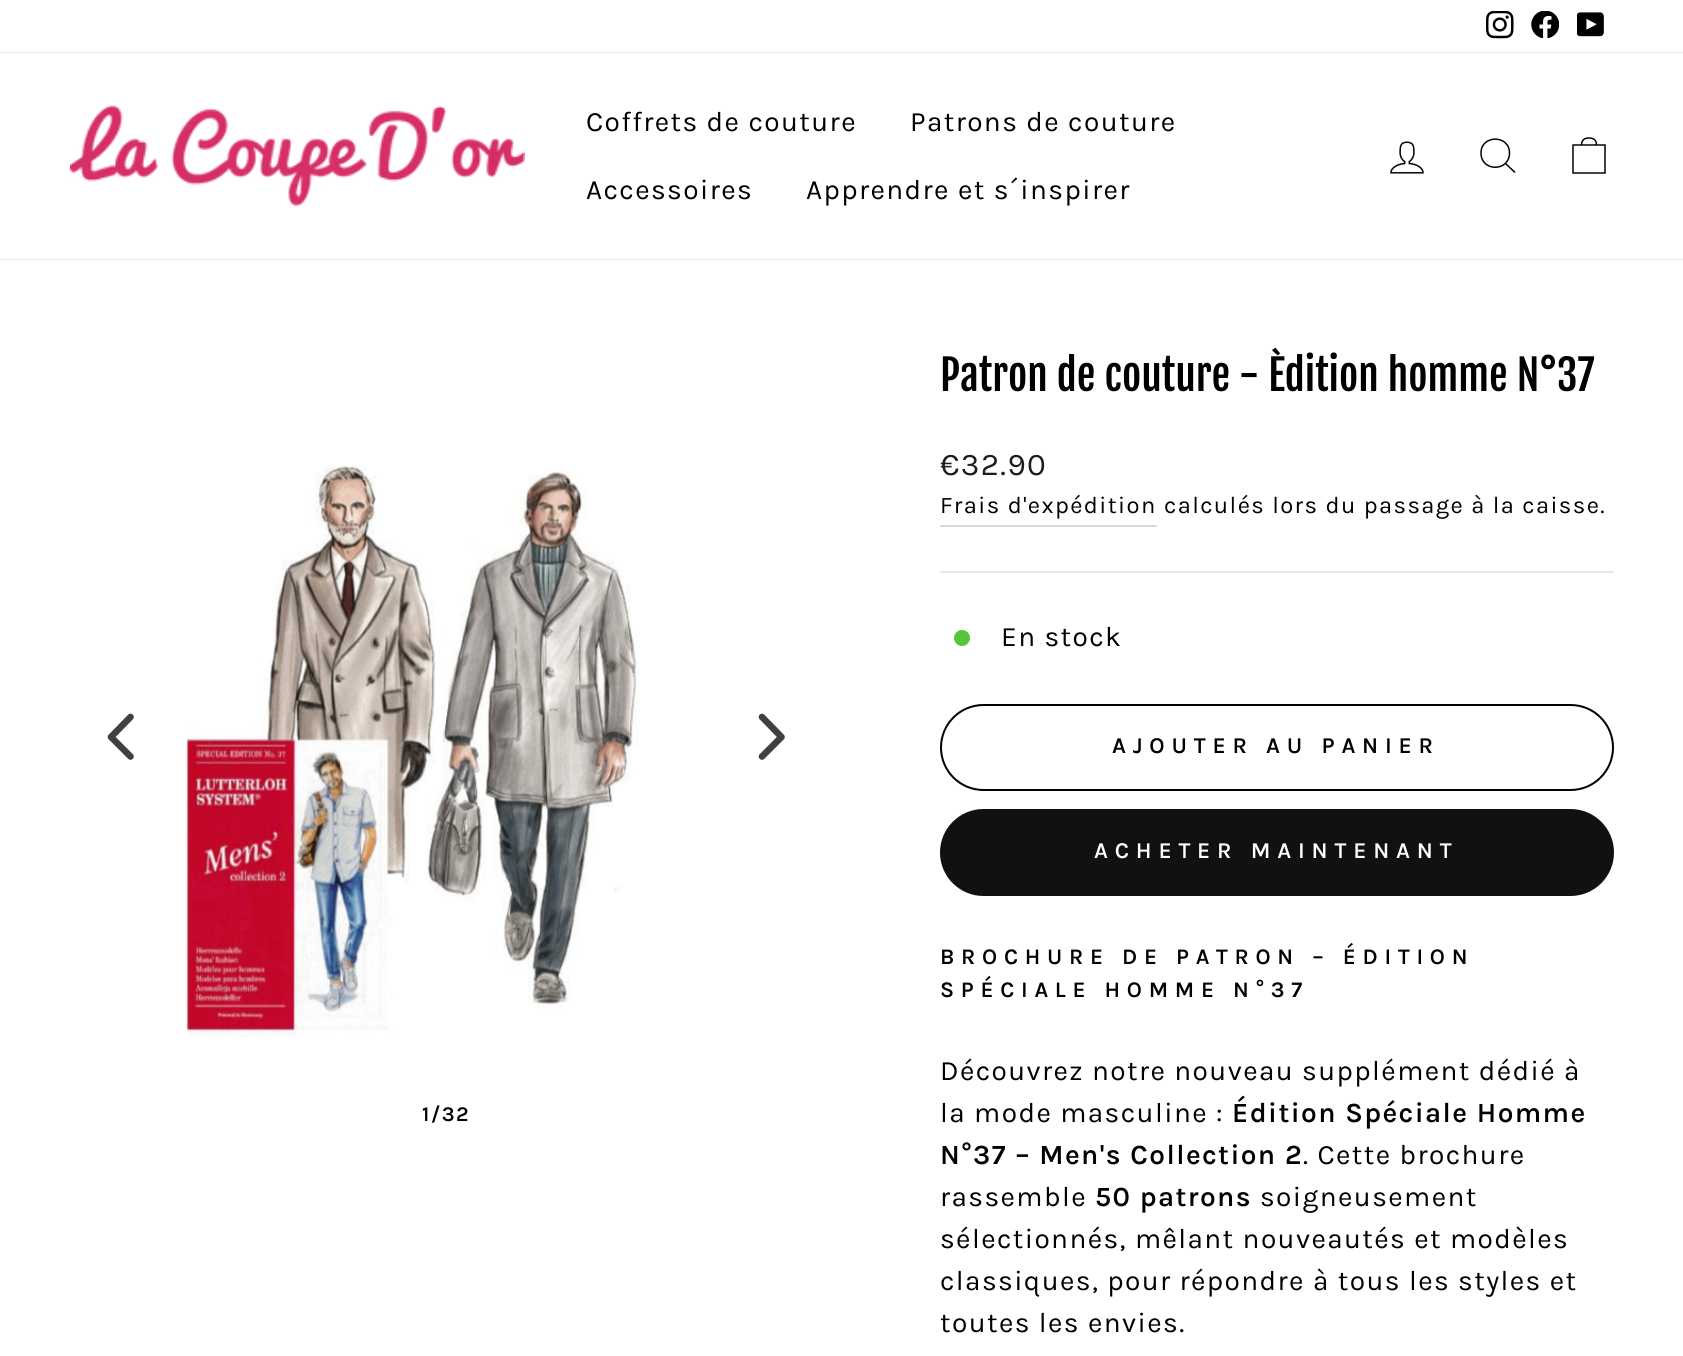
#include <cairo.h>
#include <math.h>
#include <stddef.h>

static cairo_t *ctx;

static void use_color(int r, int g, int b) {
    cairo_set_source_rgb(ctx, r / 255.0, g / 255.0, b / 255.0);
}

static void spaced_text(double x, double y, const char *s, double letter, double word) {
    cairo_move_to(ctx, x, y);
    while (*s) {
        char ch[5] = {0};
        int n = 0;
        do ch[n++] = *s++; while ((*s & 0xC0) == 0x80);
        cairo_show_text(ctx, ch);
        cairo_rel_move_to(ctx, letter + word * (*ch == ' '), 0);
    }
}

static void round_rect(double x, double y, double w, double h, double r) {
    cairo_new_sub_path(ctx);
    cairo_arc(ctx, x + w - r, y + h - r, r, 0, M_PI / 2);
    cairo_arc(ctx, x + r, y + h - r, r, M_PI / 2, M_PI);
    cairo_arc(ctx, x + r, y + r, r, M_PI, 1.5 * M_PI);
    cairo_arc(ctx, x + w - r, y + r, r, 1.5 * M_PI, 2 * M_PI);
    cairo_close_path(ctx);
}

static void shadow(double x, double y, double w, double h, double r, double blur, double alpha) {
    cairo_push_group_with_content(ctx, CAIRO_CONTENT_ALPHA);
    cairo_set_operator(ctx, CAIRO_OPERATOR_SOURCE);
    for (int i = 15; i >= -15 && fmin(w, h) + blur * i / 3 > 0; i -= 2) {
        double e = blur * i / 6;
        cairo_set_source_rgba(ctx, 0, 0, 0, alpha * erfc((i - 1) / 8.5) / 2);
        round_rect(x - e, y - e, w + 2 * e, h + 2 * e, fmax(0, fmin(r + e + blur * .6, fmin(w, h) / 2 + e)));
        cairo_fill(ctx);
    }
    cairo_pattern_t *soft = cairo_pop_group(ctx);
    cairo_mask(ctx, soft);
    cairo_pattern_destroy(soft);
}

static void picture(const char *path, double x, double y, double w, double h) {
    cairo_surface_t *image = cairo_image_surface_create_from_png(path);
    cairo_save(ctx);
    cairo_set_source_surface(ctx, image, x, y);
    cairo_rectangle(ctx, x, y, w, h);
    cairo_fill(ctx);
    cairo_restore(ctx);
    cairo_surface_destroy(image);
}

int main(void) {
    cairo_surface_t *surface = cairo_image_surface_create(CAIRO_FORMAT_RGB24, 1683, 1356);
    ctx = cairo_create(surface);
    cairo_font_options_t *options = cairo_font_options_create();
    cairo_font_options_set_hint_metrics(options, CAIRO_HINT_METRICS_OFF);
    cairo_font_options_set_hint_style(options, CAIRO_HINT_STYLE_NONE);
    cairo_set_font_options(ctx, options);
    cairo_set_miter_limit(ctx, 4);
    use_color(255, 255, 255);
    cairo_paint(ctx);
    picture("img1.png", 1486, 11, 28, 28);
    picture("img2.png", 1531, 11, 28, 28);
    picture("img3.png", 1577, 12, 27, 25);
    cairo_save(ctx);
    cairo_set_fill_rule(ctx, CAIRO_FILL_RULE_EVEN_ODD);
    cairo_new_path(ctx);
    cairo_move_to(ctx, 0, 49);
    cairo_line_to(ctx, 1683, 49);
    cairo_line_to(ctx, 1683, 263);
    cairo_line_to(ctx, 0, 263);
    cairo_close_path(ctx);
    cairo_move_to(ctx, 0, 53);
    cairo_line_to(ctx, 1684, 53);
    cairo_line_to(ctx, 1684, 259);
    cairo_line_to(ctx, 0, 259);
    cairo_close_path(ctx);
    cairo_clip(ctx);
    use_color(0, 0, 0);
    shadow(0, 53, 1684, 206, 0, 1, 0.2);
    cairo_restore(ctx);
    picture("img4.png", 70, 105, 455, 101);
    cairo_select_font_face(ctx, "Karla", CAIRO_FONT_SLANT_NORMAL, CAIRO_FONT_WEIGHT_NORMAL);
    cairo_set_font_size(ctx, 28);
    use_color(0, 0, 0);
    spaced_text(586, 131, "Coffrets de couture", 1.4, 0);
    spaced_text(910, 131, "Patrons de couture", 1.4, 0);
    spaced_text(586, 199, "Accessoires", 1.4, 0);
    spaced_text(806, 199, "Apprendre et s´inspirer", 1.4, 0);
    picture("img5.png", 1390, 141, 34, 33);
    cairo_new_path(ctx);
    cairo_move_to(ctx, 1509.5, 153);
    cairo_curve_to(ctx, 1509.5, 172, 1481, 172, 1481, 153);
    cairo_curve_to(ctx, 1481, 134.5, 1509.5, 134.5, 1509.5, 153);
    cairo_close_path(ctx);
    cairo_move_to(ctx, 1515, 172.5);
    cairo_line_to(ctx, 1505.5, 163.5);
    cairo_set_line_width(ctx, 1.5);
    cairo_stroke(ctx);
    cairo_new_path(ctx);
    cairo_move_to(ctx, 1573, 145);
    cairo_line_to(ctx, 1605, 145);
    cairo_line_to(ctx, 1605, 173);
    cairo_line_to(ctx, 1573, 173);
    cairo_close_path(ctx);
    cairo_move_to(ctx, 1581.5, 145);
    cairo_curve_to(ctx, 1581.5, 139.5, 1585, 138, 1589, 138);
    cairo_curve_to(ctx, 1593, 138, 1596.5, 139.5, 1596.5, 145);
    cairo_stroke(ctx);
    picture("img6.png", 186, 465, 453, 572);
    picture("img7.png", 187, 469, 444, 569);
    cairo_new_path(ctx);
    cairo_move_to(ctx, 130.5, 717);
    cairo_line_to(ctx, 111, 737);
    cairo_line_to(ctx, 130.5, 756.5);
    use_color(64, 64, 64);
    cairo_set_line_width(ctx, 6.6);
    cairo_set_line_cap(ctx, CAIRO_LINE_CAP_ROUND);
    cairo_set_line_join(ctx, CAIRO_LINE_JOIN_ROUND);
    cairo_stroke(ctx);
    cairo_new_path(ctx);
    cairo_move_to(ctx, 762, 717);
    cairo_line_to(ctx, 781.5, 737);
    cairo_line_to(ctx, 762, 756.5);
    cairo_stroke(ctx);
    cairo_select_font_face(ctx, "Karla SemiBold", CAIRO_FONT_SLANT_NORMAL, CAIRO_FONT_WEIGHT_NORMAL);
    cairo_set_font_size(ctx, 21);
    use_color(0, 0, 0);
    spaced_text(422, 1121, "1/32", 1.4, 0);
    cairo_select_font_face(ctx, "Fjalla One", CAIRO_FONT_SLANT_NORMAL, CAIRO_FONT_WEIGHT_NORMAL);
    cairo_set_font_size(ctx, 41.6);
    cairo_move_to(ctx, 940, 391);
    cairo_show_text(ctx, "Patron de couture - Èdition homme N°37");
    cairo_select_font_face(ctx, "Karla", CAIRO_FONT_SLANT_NORMAL, CAIRO_FONT_WEIGHT_NORMAL);
    cairo_set_font_size(ctx, 31.5);
    use_color(28, 29, 29);
    spaced_text(940, 475, "€32.90", 1.4, 0);
    use_color(217, 217, 217);
    cairo_rectangle(ctx, 940, 525, 217, 2);
    cairo_fill(ctx);
    cairo_set_font_size(ctx, 23.75);
    use_color(0, 0, 0);
    spaced_text(940, 513, "Frais d'expédition", 1.4, 0);
    spaced_text(1164, 513, "calculés lors du passage à la caisse.", 1.4, 0);
    use_color(232, 232, 225);
    cairo_rectangle(ctx, 940, 571, 674, 2);
    cairo_fill(ctx);
    use_color(84, 198, 58);
    cairo_arc(ctx, 962, 638, 8, 0, 2 * M_PI);
    cairo_fill(ctx);
    cairo_set_font_size(ctx, 28);
    use_color(0, 0, 0);
    spaced_text(1001, 646, "En stock", 1.4, 0);
    round_rect(941, 705, 672, 85, 42.5);
    cairo_set_line_width(ctx, 2);
    cairo_set_line_cap(ctx, CAIRO_LINE_CAP_BUTT);
    cairo_set_line_join(ctx, CAIRO_LINE_JOIN_MITER);
    cairo_stroke(ctx);
    cairo_select_font_face(ctx, "Karla SemiBold", CAIRO_FONT_SLANT_NORMAL, CAIRO_FONT_WEIGHT_NORMAL);
    cairo_set_font_size(ctx, 22.75);
    spaced_text(1112, 753, "AJOUTER AU PANIER", 6.8, 0);
    use_color(17, 17, 17);
    round_rect(940, 809, 674, 87, 43.5);
    cairo_fill(ctx);
    use_color(255, 255, 255);
    spaced_text(1094, 858, "ACHETER MAINTENANT", 6.8, 0);
    cairo_set_font_size(ctx, 22.4);
    use_color(0, 0, 0);
    spaced_text(940, 964, "BROCHURE DE PATRON – ÉDITION", 6.75, 0);
    spaced_text(940, 997, "SPÉCIALE HOMME N°37", 6.75, 0);
    cairo_select_font_face(ctx, "Karla", CAIRO_FONT_SLANT_NORMAL, CAIRO_FONT_WEIGHT_NORMAL);
    cairo_set_font_size(ctx, 28);
    spaced_text(940, 1080, "Découvrez notre nouveau supplément dédié à", 1.4, 0);
    spaced_text(940, 1122, "la mode masculine :", 1.4, 0);
    cairo_select_font_face(ctx, "Karla SemiBold", CAIRO_FONT_SLANT_NORMAL, CAIRO_FONT_WEIGHT_NORMAL);
    spaced_text(1232, 1122, "Édition Spéciale Homme", 1.4, 0);
    spaced_text(940, 1164, "N°37 – Men's Collection 2", 1.4, 0);
    cairo_select_font_face(ctx, "Karla", CAIRO_FONT_SLANT_NORMAL, CAIRO_FONT_WEIGHT_NORMAL);
    spaced_text(1303, 1164, ". Cette brochure", 1.4, 0);
    spaced_text(940, 1206, "rassemble", 1.4, 0);
    cairo_select_font_face(ctx, "Karla SemiBold", CAIRO_FONT_SLANT_NORMAL, CAIRO_FONT_WEIGHT_NORMAL);
    spaced_text(1095, 1206, "50 patrons", 1.4, 0);
    cairo_select_font_face(ctx, "Karla", CAIRO_FONT_SLANT_NORMAL, CAIRO_FONT_WEIGHT_NORMAL);
    spaced_text(1260, 1206, "soigneusement", 1.4, 0);
    spaced_text(940, 1248, "sélectionnés, mêlant nouveautés et modèles", 1.4, 0);
    spaced_text(940, 1290, "classiques, pour répondre à tous les styles et", 1.4, 0);
    spaced_text(940, 1332, "toutes les envies.", 1.4, 0);
    cairo_surface_write_to_png(surface, "result.png");
    cairo_font_options_destroy(options);
    cairo_destroy(ctx);
    cairo_surface_destroy(surface);
    return 0;
}
